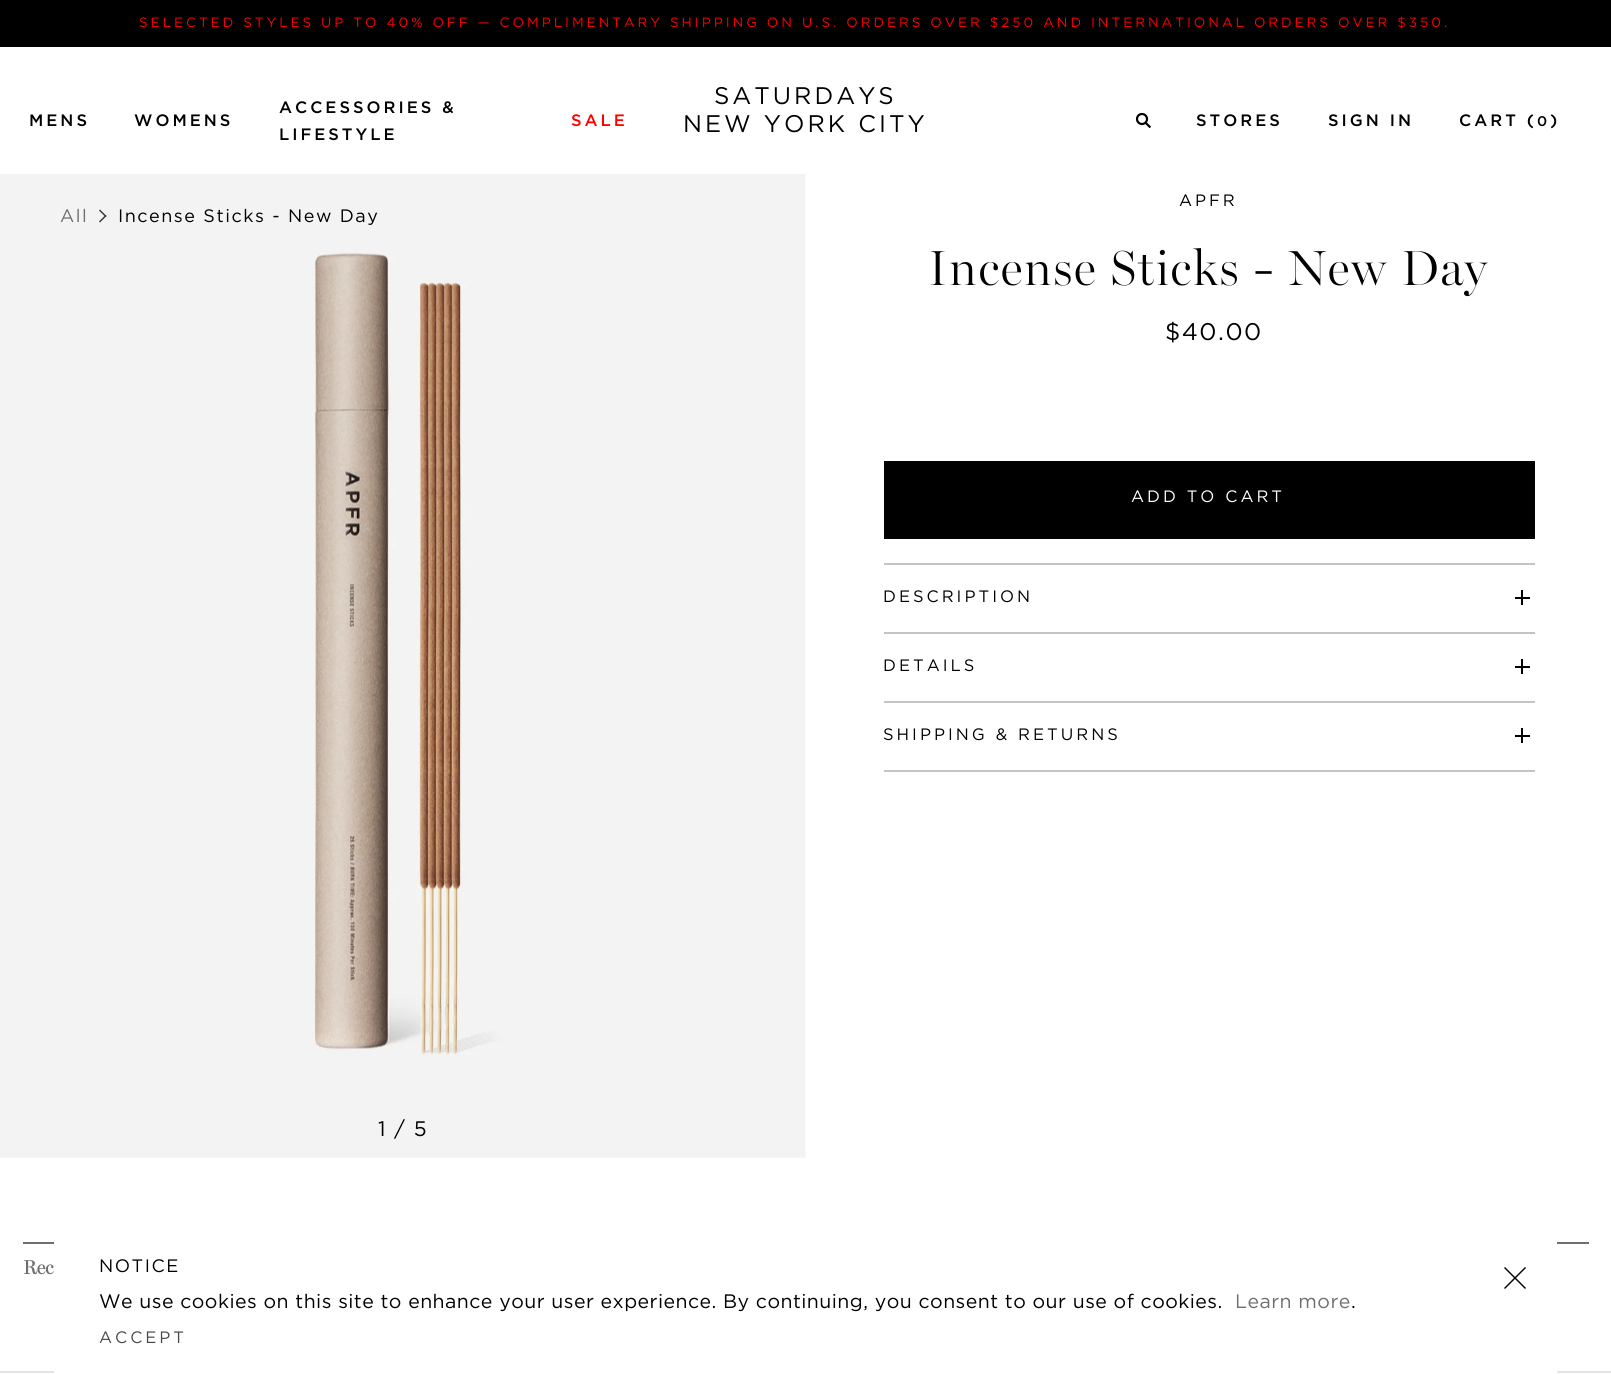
#include <cairo.h>
#include <math.h>
#include <stddef.h>

static cairo_t *ctx;

static void use_color(int r, int g, int b) {
    cairo_set_source_rgb(ctx, r / 255.0, g / 255.0, b / 255.0);
}

static void spaced_text(double x, double y, const char *s, double letter, double word) {
    cairo_move_to(ctx, x, y);
    while (*s) {
        char ch[5] = {0};
        int n = 0;
        do ch[n++] = *s++; while ((*s & 0xC0) == 0x80);
        cairo_show_text(ctx, ch);
        cairo_rel_move_to(ctx, letter + word * (*ch == ' '), 0);
    }
}

static void picture(const char *path, double x, double y, double w, double h) {
    cairo_surface_t *image = cairo_image_surface_create_from_png(path);
    cairo_save(ctx);
    cairo_set_source_surface(ctx, image, x, y);
    cairo_rectangle(ctx, x, y, w, h);
    cairo_fill(ctx);
    cairo_restore(ctx);
    cairo_surface_destroy(image);
}

int main(void) {
    cairo_surface_t *surface = cairo_image_surface_create(CAIRO_FORMAT_RGB24, 1611, 1374);
    ctx = cairo_create(surface);
    cairo_font_options_t *options = cairo_font_options_create();
    cairo_font_options_set_hint_metrics(options, CAIRO_HINT_METRICS_OFF);
    cairo_font_options_set_hint_style(options, CAIRO_HINT_STYLE_NONE);
    cairo_set_font_options(ctx, options);
    cairo_set_miter_limit(ctx, 4);
    use_color(255, 255, 255);
    cairo_paint(ctx);
    use_color(0, 0, 0);
    cairo_rectangle(ctx, 0, 0, 1611, 47);
    cairo_fill(ctx);
    cairo_select_font_face(ctx, "Gotham", CAIRO_FONT_SLANT_NORMAL, CAIRO_FONT_WEIGHT_NORMAL);
    cairo_set_font_size(ctx, 13.5);
    use_color(255, 0, 0);
    spaced_text(139, 27, "SELECTED STYLES UP TO 40% OFF — COMPLIMENTARY SHIPPING ON U.S. ORDERS OVER $250 AND INTERNATIONAL ORDERS OVER $350.", 2.97, 0);
    cairo_select_font_face(ctx, "Gotham Medium", CAIRO_FONT_SLANT_NORMAL, CAIRO_FONT_WEIGHT_NORMAL);
    cairo_set_font_size(ctx, 16.5);
    use_color(0, 0, 0);
    spaced_text(29, 126, "MENS", 3, 0);
    spaced_text(134, 126, "WOMENS", 3, 0);
    spaced_text(279, 113, "ACCESSORIES &", 3, 0);
    spaced_text(279, 140, "LIFESTYLE", 3, 0);
    use_color(255, 0, 0);
    spaced_text(571, 126, "SALE", 3, 0);
    cairo_select_font_face(ctx, "Gotham", CAIRO_FONT_SLANT_NORMAL, CAIRO_FONT_WEIGHT_NORMAL);
    cairo_set_font_size(ctx, 24);
    use_color(0, 0, 0);
    spaced_text(714, 104, "SATURDAYS", 3, 0);
    spaced_text(683, 132, "NEW YORK CITY", 3, 0);
    picture("img1.png", 1136, 113, 15, 15);
    cairo_select_font_face(ctx, "Gotham Medium", CAIRO_FONT_SLANT_NORMAL, CAIRO_FONT_WEIGHT_NORMAL);
    cairo_set_font_size(ctx, 16.5);
    spaced_text(1196, 126, "STORES", 3, 0);
    spaced_text(1328, 126, "SIGN IN", 3, 0);
    spaced_text(1459, 126, "CART (", 3, 0);
    cairo_set_font_size(ctx, 14);
    spaced_text(1537, 126, "0", 3, 0);
    cairo_set_font_size(ctx, 16.5);
    spaced_text(1550, 126, ")", 3, 0);
    picture("img2.png", 0, 174, 806, 984);
    cairo_select_font_face(ctx, "Gotham", CAIRO_FONT_SLANT_NORMAL, CAIRO_FONT_WEIGHT_NORMAL);
    cairo_set_font_size(ctx, 18);
    use_color(111, 111, 113);
    spaced_text(60, 222, "All", 1.5, 0);
    use_color(51, 51, 51);
    cairo_new_path(ctx);
    cairo_move_to(ctx, 100, 209.5);
    cairo_line_to(ctx, 106.5, 216);
    cairo_line_to(ctx, 105.5, 217);
    cairo_line_to(ctx, 99, 210.5);
    cairo_close_path(ctx);
    cairo_fill(ctx);
    cairo_new_path(ctx);
    cairo_move_to(ctx, 105.5, 215);
    cairo_line_to(ctx, 106.5, 216);
    cairo_line_to(ctx, 100, 222.5);
    cairo_line_to(ctx, 99, 221.5);
    cairo_close_path(ctx);
    cairo_fill(ctx);
    use_color(0, 0, 0);
    spaced_text(118, 222, "Incense Sticks - New Day", 1.5, 0);
    cairo_set_font_size(ctx, 16.5);
    spaced_text(1179, 206, "APFR", 2.97, 0);
    cairo_select_font_face(ctx, "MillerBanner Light", CAIRO_FONT_SLANT_NORMAL, CAIRO_FONT_WEIGHT_NORMAL);
    cairo_set_font_size(ctx, 49.5);
    spaced_text(928, 285, "Incense Sticks - New Day", 1.5, 0);
    cairo_select_font_face(ctx, "Gotham", CAIRO_FONT_SLANT_NORMAL, CAIRO_FONT_WEIGHT_NORMAL);
    cairo_set_font_size(ctx, 24);
    spaced_text(1165, 340, "$40.00", 1.5, 0);
    cairo_rectangle(ctx, 884, 461, 651, 78);
    cairo_fill(ctx);
    cairo_set_font_size(ctx, 16.5);
    use_color(255, 255, 255);
    spaced_text(1131, 502, "ADD TO CART", 2.97, 0);
    use_color(196, 196, 196);
    cairo_rectangle(ctx, 884, 563, 651, 2);
    cairo_fill(ctx);
    use_color(0, 0, 0);
    spaced_text(883, 602, "DESCRIPTION", 3, 0);
    cairo_rectangle(ctx, 1521, 590, 2, 15);
    cairo_fill(ctx);
    cairo_rectangle(ctx, 1515, 597, 15, 2);
    cairo_fill(ctx);
    use_color(196, 196, 196);
    cairo_rectangle(ctx, 884, 632, 651, 2);
    cairo_fill(ctx);
    use_color(0, 0, 0);
    spaced_text(883, 671, "DETAILS", 3, 0);
    cairo_rectangle(ctx, 1521, 659, 2, 15);
    cairo_fill(ctx);
    cairo_rectangle(ctx, 1515, 666, 15, 2);
    cairo_fill(ctx);
    use_color(196, 196, 196);
    cairo_rectangle(ctx, 884, 701, 651, 2);
    cairo_fill(ctx);
    use_color(0, 0, 0);
    spaced_text(883, 740, "SHIPPING & RETURNS", 3, 0);
    cairo_rectangle(ctx, 1521, 728, 2, 15);
    cairo_fill(ctx);
    cairo_rectangle(ctx, 1515, 735, 15, 2);
    cairo_fill(ctx);
    use_color(196, 196, 196);
    cairo_rectangle(ctx, 884, 770, 651, 2);
    cairo_fill(ctx);
    cairo_set_font_size(ctx, 21);
    use_color(0, 0, 0);
    spaced_text(378, 1136, "1 / 5", 1.25, 0);
    use_color(111, 111, 113);
    cairo_rectangle(ctx, 23, 1242, 1566, 2);
    cairo_fill(ctx);
    cairo_select_font_face(ctx, "MillerBanner", CAIRO_FONT_SLANT_NORMAL, CAIRO_FONT_WEIGHT_BOLD);
    cairo_set_font_size(ctx, 19.5);
    cairo_move_to(ctx, 23, 1274);
    cairo_show_text(ctx, "Rec");
    use_color(231, 228, 223);
    cairo_rectangle(ctx, 0, 1371, 1611, 2);
    cairo_fill(ctx);
    use_color(255, 255, 255);
    cairo_rectangle(ctx, 54, 1242, 1503, 131);
    cairo_fill(ctx);
    cairo_select_font_face(ctx, "Gotham", CAIRO_FONT_SLANT_NORMAL, CAIRO_FONT_WEIGHT_NORMAL);
    cairo_set_font_size(ctx, 18);
    use_color(0, 0, 0);
    spaced_text(99, 1272, "NOTICE", 1.5, 0);
    cairo_new_path(ctx);
    cairo_move_to(ctx, 1525, 1267);
    cairo_line_to(ctx, 1526, 1268);
    cairo_line_to(ctx, 1505, 1289);
    cairo_line_to(ctx, 1504, 1288);
    cairo_close_path(ctx);
    cairo_fill(ctx);
    cairo_new_path(ctx);
    cairo_move_to(ctx, 1505, 1267);
    cairo_line_to(ctx, 1526, 1288);
    cairo_line_to(ctx, 1525, 1289);
    cairo_line_to(ctx, 1504, 1268);
    cairo_close_path(ctx);
    cairo_fill(ctx);
    cairo_set_font_size(ctx, 19.5);
    spaced_text(99, 1308, "We use cookies on this site to enhance your user experience. By continuing, you consent to our use of cookies.", 0.45, 0);
    use_color(111, 111, 113);
    spaced_text(1235, 1308, "Learn more", 0.45, 0);
    use_color(0, 0, 0);
    spaced_text(1351, 1308, ".", 0.45, 0);
    cairo_set_font_size(ctx, 16.5);
    use_color(72, 72, 72);
    spaced_text(99, 1343, "ACCEPT", 2.97, 0);
    cairo_surface_write_to_png(surface, "result.png");
    cairo_font_options_destroy(options);
    cairo_destroy(ctx);
    cairo_surface_destroy(surface);
    return 0;
}
